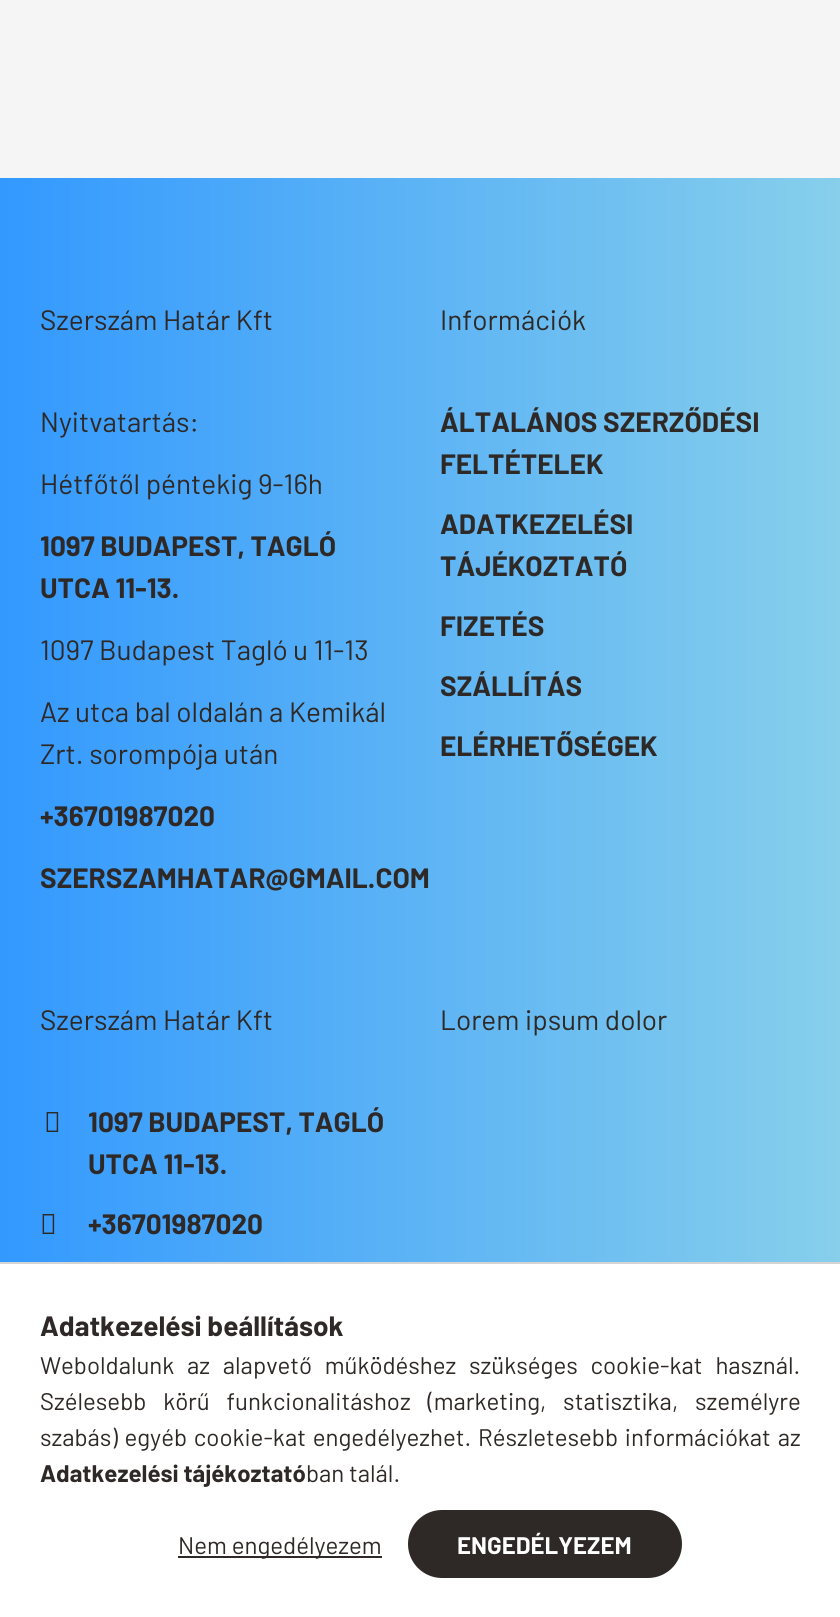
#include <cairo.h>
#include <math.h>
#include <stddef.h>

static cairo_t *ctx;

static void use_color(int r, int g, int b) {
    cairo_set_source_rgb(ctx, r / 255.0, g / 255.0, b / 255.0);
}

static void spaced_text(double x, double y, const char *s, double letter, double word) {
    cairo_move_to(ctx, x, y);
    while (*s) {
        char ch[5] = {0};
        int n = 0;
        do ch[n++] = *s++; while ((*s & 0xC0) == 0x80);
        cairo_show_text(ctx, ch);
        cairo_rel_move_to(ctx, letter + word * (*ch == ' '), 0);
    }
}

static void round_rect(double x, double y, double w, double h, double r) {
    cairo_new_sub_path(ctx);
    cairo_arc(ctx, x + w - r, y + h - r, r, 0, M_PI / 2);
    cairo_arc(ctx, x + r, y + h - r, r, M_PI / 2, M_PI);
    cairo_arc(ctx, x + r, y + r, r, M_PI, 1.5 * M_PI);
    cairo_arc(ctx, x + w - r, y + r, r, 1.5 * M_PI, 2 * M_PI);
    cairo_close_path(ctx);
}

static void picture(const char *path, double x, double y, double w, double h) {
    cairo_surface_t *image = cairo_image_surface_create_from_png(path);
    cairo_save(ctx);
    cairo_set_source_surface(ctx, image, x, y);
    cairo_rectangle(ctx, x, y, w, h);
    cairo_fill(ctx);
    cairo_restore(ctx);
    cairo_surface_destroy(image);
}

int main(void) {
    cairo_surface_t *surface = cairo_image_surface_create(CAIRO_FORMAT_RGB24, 840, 1617);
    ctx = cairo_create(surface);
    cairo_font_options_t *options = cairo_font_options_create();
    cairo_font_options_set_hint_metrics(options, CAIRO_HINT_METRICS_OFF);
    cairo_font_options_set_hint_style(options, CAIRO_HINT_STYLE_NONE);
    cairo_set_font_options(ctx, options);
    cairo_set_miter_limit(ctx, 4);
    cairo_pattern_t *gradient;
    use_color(245, 245, 245);
    cairo_paint(ctx);
    gradient = cairo_pattern_create_linear(0, 809, 840, 809);
    cairo_pattern_add_color_stop_rgba(gradient, 0, 0.2, 0.6, 1, 1);
    cairo_pattern_add_color_stop_rgba(gradient, 1, 0.529, 0.812, 0.922, 1);
    cairo_set_source(ctx, gradient);
    cairo_pattern_destroy(gradient);
    cairo_rectangle(ctx, 0, 178, 840, 1084);
    cairo_fill(ctx);
    cairo_select_font_face(ctx, "Barlow", CAIRO_FONT_SLANT_NORMAL, CAIRO_FONT_WEIGHT_NORMAL);
    cairo_set_font_size(ctx, 28);
    use_color(46, 41, 38);
    cairo_move_to(ctx, 40, 330);
    cairo_show_text(ctx, "Szerszám Határ Kft");
    cairo_move_to(ctx, 40, 432);
    cairo_show_text(ctx, "Nyitvatartás:");
    cairo_move_to(ctx, 40, 494);
    cairo_show_text(ctx, "Hétfőtől péntekig 9-16h");
    cairo_select_font_face(ctx, "Barlow", CAIRO_FONT_SLANT_NORMAL, CAIRO_FONT_WEIGHT_BOLD);
    cairo_move_to(ctx, 40, 556);
    cairo_show_text(ctx, "1097 BUDAPEST, TAGLÓ");
    cairo_move_to(ctx, 40, 598);
    cairo_show_text(ctx, "UTCA 11-13.");
    cairo_select_font_face(ctx, "Barlow", CAIRO_FONT_SLANT_NORMAL, CAIRO_FONT_WEIGHT_NORMAL);
    cairo_move_to(ctx, 40, 660);
    cairo_show_text(ctx, "1097 Budapest Tagló u 11-13");
    cairo_move_to(ctx, 40, 722);
    cairo_show_text(ctx, "Az utca bal oldalán a Kemikál");
    cairo_move_to(ctx, 40, 764);
    cairo_show_text(ctx, "Zrt. sorompója után");
    cairo_select_font_face(ctx, "Barlow", CAIRO_FONT_SLANT_NORMAL, CAIRO_FONT_WEIGHT_BOLD);
    cairo_move_to(ctx, 40, 826);
    cairo_show_text(ctx, "+36701987020");
    cairo_move_to(ctx, 40, 888);
    cairo_show_text(ctx, "SZERSZAMHATAR@GMAIL.COM");
    cairo_select_font_face(ctx, "Barlow", CAIRO_FONT_SLANT_NORMAL, CAIRO_FONT_WEIGHT_NORMAL);
    cairo_move_to(ctx, 440, 330);
    cairo_show_text(ctx, "Információk");
    cairo_select_font_face(ctx, "Barlow", CAIRO_FONT_SLANT_NORMAL, CAIRO_FONT_WEIGHT_BOLD);
    cairo_move_to(ctx, 440, 432);
    cairo_show_text(ctx, "ÁLTALÁNOS SZERZŐDÉSI");
    cairo_move_to(ctx, 440, 474);
    cairo_show_text(ctx, "FELTÉTELEK");
    cairo_move_to(ctx, 440, 534);
    cairo_show_text(ctx, "ADATKEZELÉSI");
    cairo_move_to(ctx, 440, 576);
    cairo_show_text(ctx, "TÁJÉKOZTATÓ");
    cairo_move_to(ctx, 440, 636);
    cairo_show_text(ctx, "FIZETÉS");
    cairo_move_to(ctx, 440, 696);
    cairo_show_text(ctx, "SZÁLLÍTÁS");
    cairo_move_to(ctx, 440, 756);
    cairo_show_text(ctx, "ELÉRHETŐSÉGEK");
    cairo_select_font_face(ctx, "Barlow", CAIRO_FONT_SLANT_NORMAL, CAIRO_FONT_WEIGHT_NORMAL);
    cairo_move_to(ctx, 40, 1030);
    cairo_show_text(ctx, "Szerszám Határ Kft");
    picture("img1.png", 46, 1112, 13, 20);
    cairo_select_font_face(ctx, "Barlow", CAIRO_FONT_SLANT_NORMAL, CAIRO_FONT_WEIGHT_BOLD);
    cairo_move_to(ctx, 88, 1132);
    cairo_show_text(ctx, "1097 BUDAPEST, TAGLÓ");
    cairo_move_to(ctx, 88, 1174);
    cairo_show_text(ctx, "UTCA 11-13.");
    picture("img2.png", 42, 1214, 13, 20);
    cairo_move_to(ctx, 88, 1234);
    cairo_show_text(ctx, "+36701987020");
    cairo_select_font_face(ctx, "Barlow", CAIRO_FONT_SLANT_NORMAL, CAIRO_FONT_WEIGHT_NORMAL);
    cairo_move_to(ctx, 440, 1030);
    cairo_show_text(ctx, "Lorem ipsum dolor");
    use_color(255, 255, 255);
    cairo_rectangle(ctx, 0, 1264, 840, 353);
    cairo_fill(ctx);
    use_color(213, 212, 212);
    cairo_rectangle(ctx, 0, 1262, 840, 2);
    cairo_fill(ctx);
    cairo_select_font_face(ctx, "Barlow", CAIRO_FONT_SLANT_NORMAL, CAIRO_FONT_WEIGHT_BOLD);
    use_color(46, 41, 38);
    cairo_move_to(ctx, 40, 1336);
    cairo_show_text(ctx, "Adatkezelési beállítások");
    cairo_select_font_face(ctx, "Barlow", CAIRO_FONT_SLANT_NORMAL, CAIRO_FONT_WEIGHT_NORMAL);
    cairo_set_font_size(ctx, 24);
    spaced_text(40, 1374, "Weboldalunk az alapvető működéshez szükséges cookie-kat használ.", 0, 8);
    spaced_text(40, 1410, "Szélesebb körű funkcionalitáshoz (marketing, statisztika, személyre", 0, 12);
    spaced_text(40, 1446, "szabás) egyéb cookie-kat engedélyezhet. Részletesebb információkat az", 0, 2);
    cairo_select_font_face(ctx, "Barlow", CAIRO_FONT_SLANT_NORMAL, CAIRO_FONT_WEIGHT_BOLD);
    cairo_move_to(ctx, 40, 1482);
    cairo_show_text(ctx, "Adatkezelési tájékoztató");
    cairo_select_font_face(ctx, "Barlow", CAIRO_FONT_SLANT_NORMAL, CAIRO_FONT_WEIGHT_NORMAL);
    cairo_move_to(ctx, 306, 1482);
    cairo_show_text(ctx, "ban talál.");
    cairo_rectangle(ctx, 178, 1556, 204, 2);
    cairo_fill(ctx);
    cairo_move_to(ctx, 178, 1554);
    cairo_show_text(ctx, "Nem engedélyezem");
    gradient = cairo_pattern_create_linear(408, 1544, 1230, 1544);
    cairo_pattern_add_color_stop_rgba(gradient, 0.33, 0.18, 0.161, 0.149, 1);
    cairo_pattern_add_color_stop_rgba(gradient, 0.67, 0.682, 0.706, 0.8, 1);
    cairo_set_source(ctx, gradient);
    cairo_pattern_destroy(gradient);
    round_rect(408, 1510, 274, 68, 34);
    cairo_fill(ctx);
    cairo_select_font_face(ctx, "Barlow", CAIRO_FONT_SLANT_NORMAL, CAIRO_FONT_WEIGHT_BOLD);
    use_color(255, 255, 255);
    cairo_move_to(ctx, 457, 1554);
    cairo_show_text(ctx, "ENGEDÉLYEZEM");
    cairo_surface_write_to_png(surface, "result.png");
    cairo_font_options_destroy(options);
    cairo_destroy(ctx);
    cairo_surface_destroy(surface);
    return 0;
}
